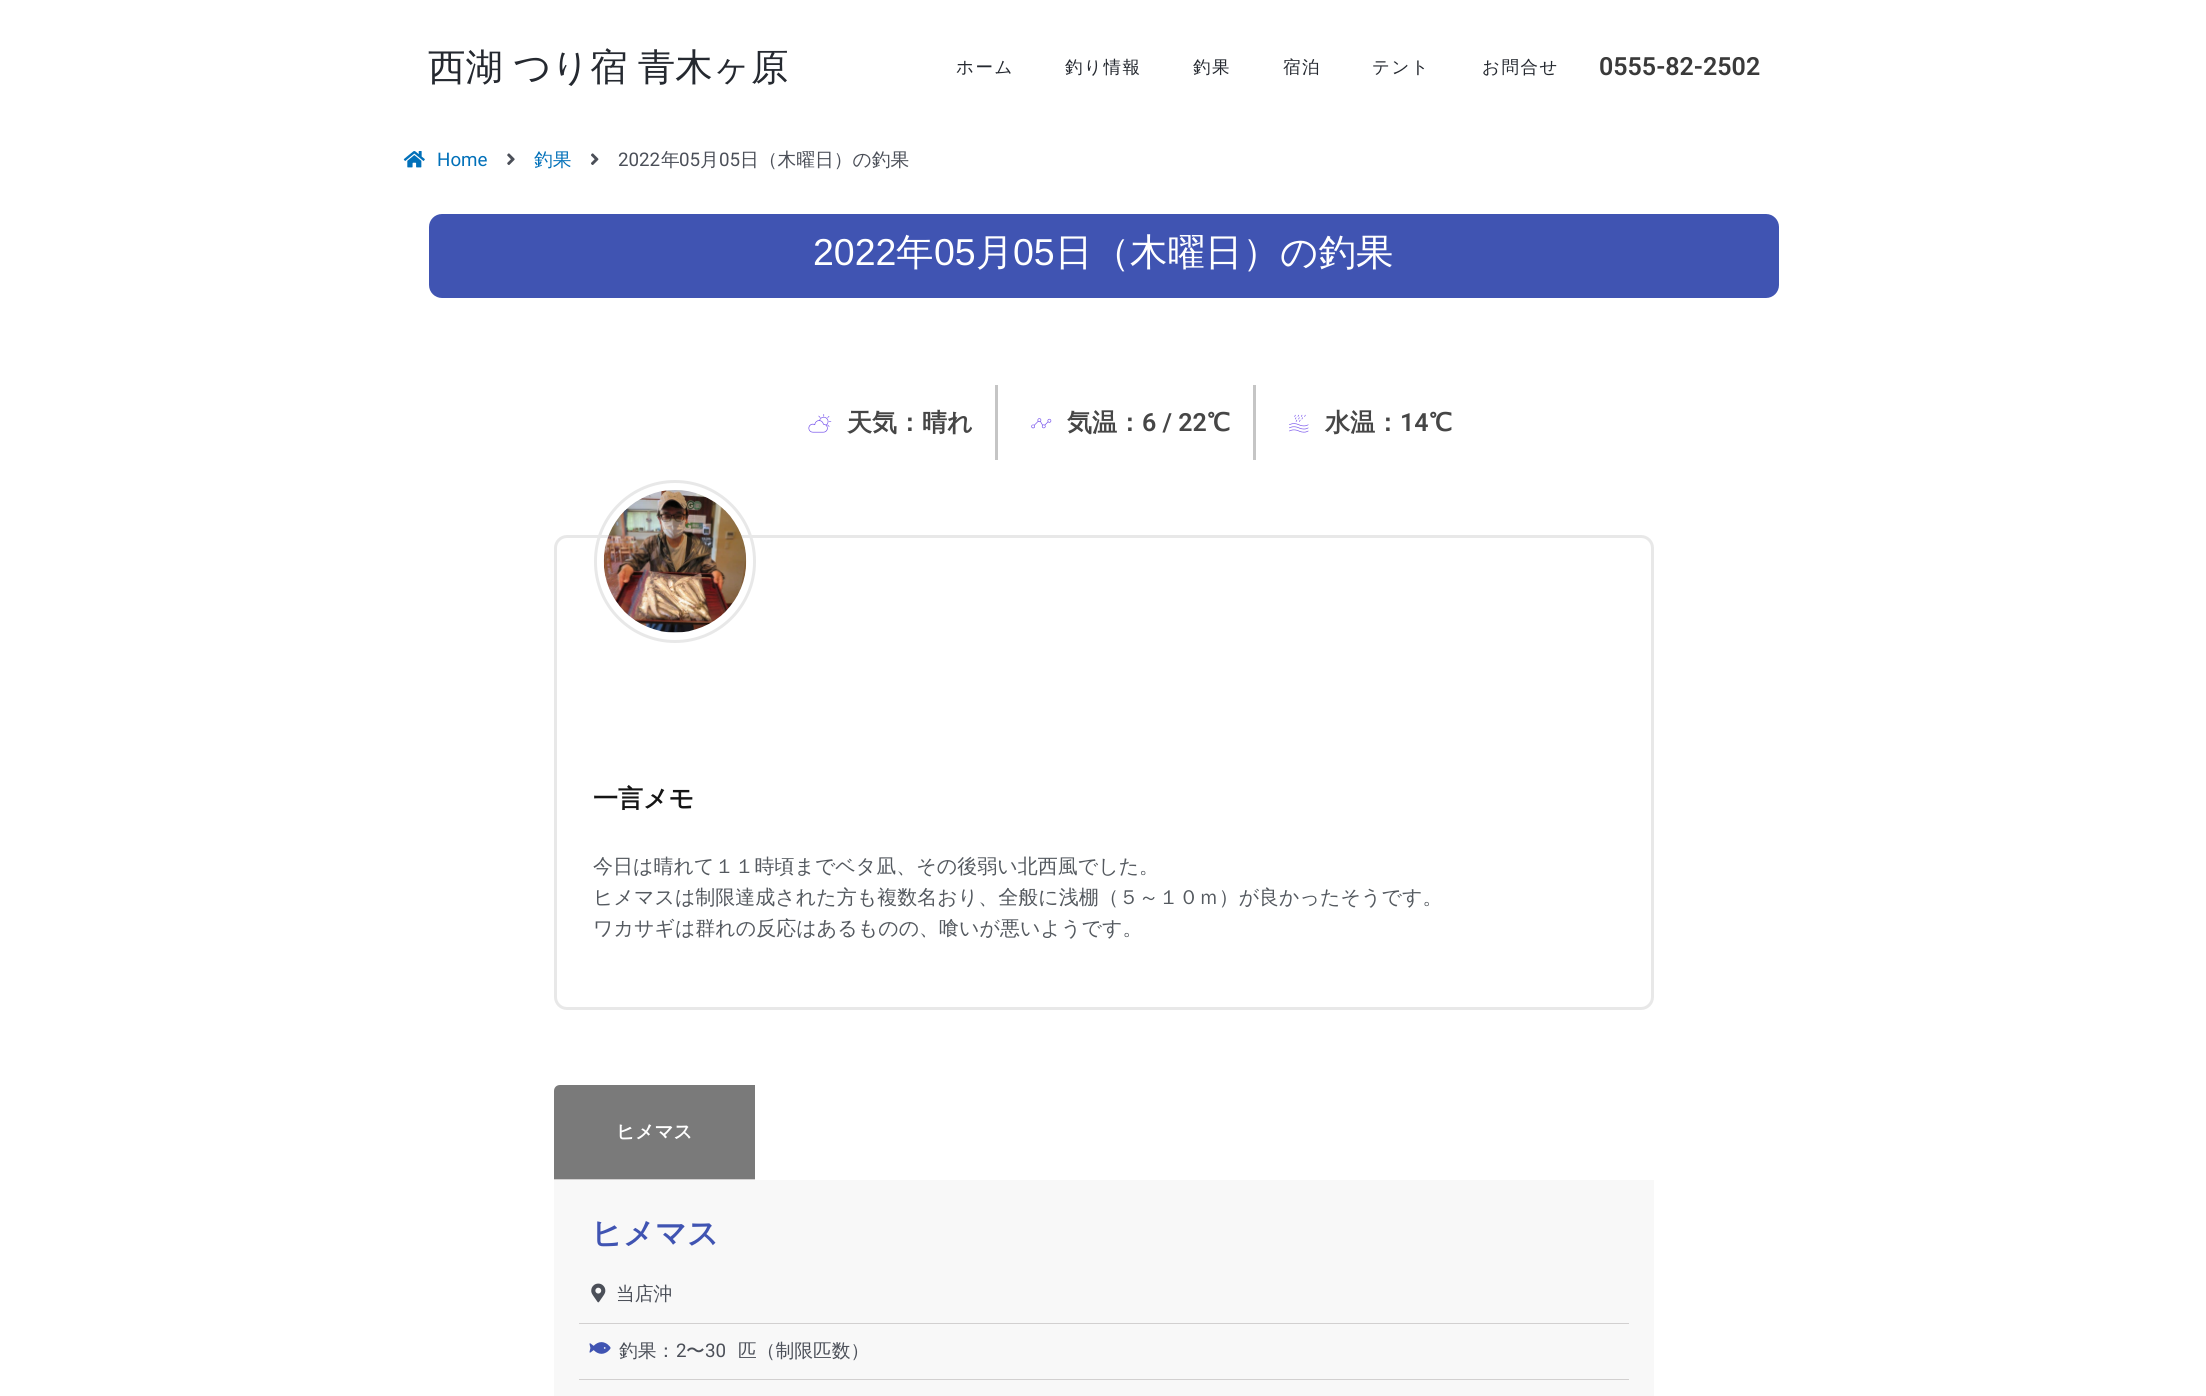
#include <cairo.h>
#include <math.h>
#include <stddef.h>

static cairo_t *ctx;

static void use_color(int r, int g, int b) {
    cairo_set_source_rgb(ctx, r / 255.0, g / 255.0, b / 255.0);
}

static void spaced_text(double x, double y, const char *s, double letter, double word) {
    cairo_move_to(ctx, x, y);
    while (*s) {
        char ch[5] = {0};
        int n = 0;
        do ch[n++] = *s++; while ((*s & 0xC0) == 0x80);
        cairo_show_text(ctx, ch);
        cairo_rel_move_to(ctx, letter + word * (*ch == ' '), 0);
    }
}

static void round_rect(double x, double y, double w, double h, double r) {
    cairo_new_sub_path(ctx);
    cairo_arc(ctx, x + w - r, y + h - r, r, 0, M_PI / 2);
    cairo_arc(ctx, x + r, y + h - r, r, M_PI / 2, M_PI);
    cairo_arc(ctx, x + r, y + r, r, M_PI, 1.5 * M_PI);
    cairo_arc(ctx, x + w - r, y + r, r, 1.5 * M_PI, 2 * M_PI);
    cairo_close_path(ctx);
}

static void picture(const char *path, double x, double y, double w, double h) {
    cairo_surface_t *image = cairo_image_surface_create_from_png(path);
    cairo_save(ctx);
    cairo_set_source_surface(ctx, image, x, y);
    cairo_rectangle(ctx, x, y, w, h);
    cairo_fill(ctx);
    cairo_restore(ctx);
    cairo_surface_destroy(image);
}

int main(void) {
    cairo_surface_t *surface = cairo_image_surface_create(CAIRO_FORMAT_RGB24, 2206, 1396);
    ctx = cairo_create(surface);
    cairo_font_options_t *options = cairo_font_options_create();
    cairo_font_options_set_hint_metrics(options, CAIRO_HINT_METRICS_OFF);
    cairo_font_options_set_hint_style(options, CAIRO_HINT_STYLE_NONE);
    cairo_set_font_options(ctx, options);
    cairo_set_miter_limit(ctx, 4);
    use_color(255, 255, 255);
    cairo_paint(ctx);
    cairo_select_font_face(ctx, "WenQuanYi Zen Hei Medium", CAIRO_FONT_SLANT_NORMAL, CAIRO_FONT_WEIGHT_NORMAL);
    cairo_set_font_size(ctx, 37.5);
    use_color(37, 41, 48);
    spaced_text(428, 80, "西湖 つり宿 青木ヶ原", 0, -1);
    cairo_set_font_size(ctx, 17.5);
    spaced_text(956, 73, "ホーム", 1.5, 0);
    spaced_text(1065, 73, "釣り情報", 1.5, 0);
    spaced_text(1193, 73, "釣果", 1.5, 0);
    spaced_text(1283, 73, "宿泊", 1.5, 0);
    spaced_text(1372, 73, "テント", 1.5, 0);
    spaced_text(1482, 73, "お問合せ", 1.5, 0);
    cairo_select_font_face(ctx, "Roboto SemiBold", CAIRO_FONT_SLANT_NORMAL, CAIRO_FONT_WEIGHT_NORMAL);
    cairo_set_font_size(ctx, 25);
    use_color(58, 58, 58);
    cairo_move_to(ctx, 1599, 75);
    cairo_show_text(ctx, "0555-82-2502");
    picture("img1.png", 403, 151, 22, 17);
    cairo_select_font_face(ctx, "Roboto", CAIRO_FONT_SLANT_NORMAL, CAIRO_FONT_WEIGHT_NORMAL);
    cairo_set_font_size(ctx, 18.75);
    use_color(1, 112, 185);
    cairo_move_to(ctx, 437, 166);
    cairo_show_text(ctx, "Home");
    picture("img2.png", 507, 153, 8, 12);
    cairo_select_font_face(ctx, "WenQuanYi Zen Hei Medium", CAIRO_FONT_SLANT_NORMAL, CAIRO_FONT_WEIGHT_NORMAL);
    cairo_move_to(ctx, 534, 166);
    cairo_show_text(ctx, "釣果");
    picture("img3.png", 591, 153, 8, 12);
    cairo_select_font_face(ctx, "Roboto", CAIRO_FONT_SLANT_NORMAL, CAIRO_FONT_WEIGHT_NORMAL);
    use_color(75, 79, 88);
    cairo_move_to(ctx, 618, 166);
    cairo_show_text(ctx, "2022");
    cairo_select_font_face(ctx, "WenQuanYi Zen Hei Medium", CAIRO_FONT_SLANT_NORMAL, CAIRO_FONT_WEIGHT_NORMAL);
    cairo_move_to(ctx, 661, 166);
    cairo_show_text(ctx, "年");
    cairo_select_font_face(ctx, "Roboto", CAIRO_FONT_SLANT_NORMAL, CAIRO_FONT_WEIGHT_NORMAL);
    cairo_move_to(ctx, 679, 166);
    cairo_show_text(ctx, "05");
    cairo_select_font_face(ctx, "WenQuanYi Zen Hei Medium", CAIRO_FONT_SLANT_NORMAL, CAIRO_FONT_WEIGHT_NORMAL);
    cairo_move_to(ctx, 700, 166);
    cairo_show_text(ctx, "月");
    cairo_select_font_face(ctx, "Roboto", CAIRO_FONT_SLANT_NORMAL, CAIRO_FONT_WEIGHT_NORMAL);
    cairo_move_to(ctx, 719, 166);
    cairo_show_text(ctx, "05");
    cairo_select_font_face(ctx, "WenQuanYi Zen Hei Medium", CAIRO_FONT_SLANT_NORMAL, CAIRO_FONT_WEIGHT_NORMAL);
    cairo_move_to(ctx, 740, 166);
    cairo_show_text(ctx, "日（木曜日）の釣果");
    use_color(64, 84, 178);
    round_rect(429, 214, 1350, 84, 13);
    cairo_fill(ctx);
    cairo_select_font_face(ctx, "Liberation Sans", CAIRO_FONT_SLANT_NORMAL, CAIRO_FONT_WEIGHT_NORMAL);
    cairo_set_font_size(ctx, 37.5);
    use_color(255, 255, 255);
    cairo_move_to(ctx, 813, 265);
    cairo_show_text(ctx, "2022");
    cairo_select_font_face(ctx, "WenQuanYi Zen Hei Medium", CAIRO_FONT_SLANT_NORMAL, CAIRO_FONT_WEIGHT_NORMAL);
    cairo_move_to(ctx, 896, 265);
    cairo_show_text(ctx, "年");
    cairo_select_font_face(ctx, "Liberation Sans", CAIRO_FONT_SLANT_NORMAL, CAIRO_FONT_WEIGHT_NORMAL);
    cairo_move_to(ctx, 934, 265);
    cairo_show_text(ctx, "05");
    cairo_select_font_face(ctx, "WenQuanYi Zen Hei Medium", CAIRO_FONT_SLANT_NORMAL, CAIRO_FONT_WEIGHT_NORMAL);
    cairo_move_to(ctx, 976, 265);
    cairo_show_text(ctx, "月");
    cairo_select_font_face(ctx, "Liberation Sans", CAIRO_FONT_SLANT_NORMAL, CAIRO_FONT_WEIGHT_NORMAL);
    cairo_move_to(ctx, 1013, 265);
    cairo_show_text(ctx, "05");
    cairo_select_font_face(ctx, "WenQuanYi Zen Hei Medium", CAIRO_FONT_SLANT_NORMAL, CAIRO_FONT_WEIGHT_NORMAL);
    cairo_move_to(ctx, 1055, 265);
    cairo_show_text(ctx, "日（木曜日）の釣果");
    picture("img4.png", 808, 414, 24, 19);
    cairo_select_font_face(ctx, "WenQuanYi Zen Hei", CAIRO_FONT_SLANT_NORMAL, CAIRO_FONT_WEIGHT_BOLD);
    cairo_set_font_size(ctx, 25);
    use_color(70, 70, 70);
    cairo_move_to(ctx, 847, 431);
    cairo_show_text(ctx, "天気：晴れ");
    use_color(197, 197, 197);
    cairo_rectangle(ctx, 995, 385, 3, 75);
    cairo_fill(ctx);
    picture("img5.png", 1031, 418, 21, 11);
    use_color(70, 70, 70);
    cairo_move_to(ctx, 1067, 431);
    cairo_show_text(ctx, "気温：");
    cairo_select_font_face(ctx, "Roboto SemiBold", CAIRO_FONT_SLANT_NORMAL, CAIRO_FONT_WEIGHT_NORMAL);
    cairo_move_to(ctx, 1142, 431);
    cairo_show_text(ctx, "6 / 22");
    cairo_select_font_face(ctx, "WenQuanYi Zen Hei", CAIRO_FONT_SLANT_NORMAL, CAIRO_FONT_WEIGHT_BOLD);
    cairo_move_to(ctx, 1207, 431);
    cairo_show_text(ctx, "℃");
    use_color(197, 197, 197);
    cairo_rectangle(ctx, 1253, 385, 3, 75);
    cairo_fill(ctx);
    picture("img6.png", 1289, 414, 20, 19);
    use_color(70, 70, 70);
    cairo_move_to(ctx, 1325, 431);
    cairo_show_text(ctx, "水温：");
    cairo_select_font_face(ctx, "Roboto SemiBold", CAIRO_FONT_SLANT_NORMAL, CAIRO_FONT_WEIGHT_NORMAL);
    cairo_move_to(ctx, 1400, 431);
    cairo_show_text(ctx, "14");
    cairo_select_font_face(ctx, "WenQuanYi Zen Hei", CAIRO_FONT_SLANT_NORMAL, CAIRO_FONT_WEIGHT_BOLD);
    cairo_move_to(ctx, 1429, 431);
    cairo_show_text(ctx, "℃");
    round_rect(555.5, 536.5, 1097, 472, 11.5);
    use_color(232, 232, 232);
    cairo_set_line_width(ctx, 3);
    cairo_stroke(ctx);
    round_rect(595.5, 481.5, 159, 160, 79.5);
    cairo_stroke(ctx);
    picture("img7.png", 603, 490, 144, 143);
    use_color(21, 21, 21);
    cairo_move_to(ctx, 593, 807);
    cairo_show_text(ctx, "一言メモ");
    cairo_select_font_face(ctx, "WenQuanYi Zen Hei Medium", CAIRO_FONT_SLANT_NORMAL, CAIRO_FONT_WEIGHT_NORMAL);
    cairo_set_font_size(ctx, 20);
    use_color(84, 89, 95);
    cairo_move_to(ctx, 593, 873);
    cairo_show_text(ctx, "今日は晴れて１１時頃までベタ凪、その後弱い北西風でした。");
    cairo_move_to(ctx, 593, 904);
    cairo_show_text(ctx, "ヒメマスは制限達成された方も複数名おり、全般に浅棚（５～１０ｍ）が良かったそうです。");
    cairo_move_to(ctx, 593, 935);
    cairo_show_text(ctx, "ワカサギは群れの反応はあるものの、喰いが悪いようです。");
    use_color(122, 122, 122);
    cairo_new_path(ctx);
    cairo_move_to(ctx, 560, 1085);
    cairo_line_to(ctx, 755, 1085);
    cairo_line_to(ctx, 755, 1179);
    cairo_line_to(ctx, 554, 1179);
    cairo_line_to(ctx, 554, 1091);
    cairo_curve_to(ctx, 554, 1087.5, 556.5, 1085, 560, 1085);
    cairo_close_path(ctx);
    cairo_fill(ctx);
    use_color(210, 208, 208);
    cairo_rectangle(ctx, 554, 1179, 201, 1);
    cairo_fill(ctx);
    cairo_select_font_face(ctx, "WenQuanYi Zen Hei", CAIRO_FONT_SLANT_NORMAL, CAIRO_FONT_WEIGHT_BOLD);
    cairo_set_font_size(ctx, 18.75);
    use_color(255, 255, 255);
    cairo_move_to(ctx, 616, 1138);
    cairo_show_text(ctx, "ヒメマス");
    use_color(248, 248, 248);
    cairo_rectangle(ctx, 554, 1180, 1100, 216);
    cairo_fill(ctx);
    cairo_set_font_size(ctx, 31.25);
    use_color(64, 84, 178);
    cairo_move_to(ctx, 591, 1244);
    cairo_show_text(ctx, "ヒメマス");
    use_color(210, 208, 208);
    cairo_rectangle(ctx, 579, 1323, 1050, 1);
    cairo_fill(ctx);
    picture("img8.png", 591, 1283, 15, 20);
    cairo_select_font_face(ctx, "WenQuanYi Zen Hei Medium", CAIRO_FONT_SLANT_NORMAL, CAIRO_FONT_WEIGHT_NORMAL);
    cairo_set_font_size(ctx, 18.75);
    use_color(75, 79, 88);
    cairo_move_to(ctx, 616, 1300);
    cairo_show_text(ctx, "当店沖");
    use_color(210, 208, 208);
    cairo_rectangle(ctx, 579, 1379, 1050, 1);
    cairo_fill(ctx);
    picture("img9.png", 589, 1342, 22, 12);
    use_color(75, 79, 88);
    cairo_move_to(ctx, 619, 1357);
    cairo_show_text(ctx, "釣果：");
    cairo_select_font_face(ctx, "Roboto", CAIRO_FONT_SLANT_NORMAL, CAIRO_FONT_WEIGHT_NORMAL);
    cairo_move_to(ctx, 676, 1357);
    cairo_show_text(ctx, "2");
    cairo_select_font_face(ctx, "WenQuanYi Zen Hei Medium", CAIRO_FONT_SLANT_NORMAL, CAIRO_FONT_WEIGHT_NORMAL);
    cairo_move_to(ctx, 686, 1357);
    cairo_show_text(ctx, "〜");
    cairo_select_font_face(ctx, "Roboto", CAIRO_FONT_SLANT_NORMAL, CAIRO_FONT_WEIGHT_NORMAL);
    cairo_move_to(ctx, 705, 1357);
    cairo_show_text(ctx, "30");
    cairo_select_font_face(ctx, "WenQuanYi Zen Hei Medium", CAIRO_FONT_SLANT_NORMAL, CAIRO_FONT_WEIGHT_NORMAL);
    cairo_move_to(ctx, 738, 1357);
    cairo_show_text(ctx, "匹（制限匹数）");
    cairo_surface_write_to_png(surface, "result.png");
    cairo_font_options_destroy(options);
    cairo_destroy(ctx);
    cairo_surface_destroy(surface);
    return 0;
}
